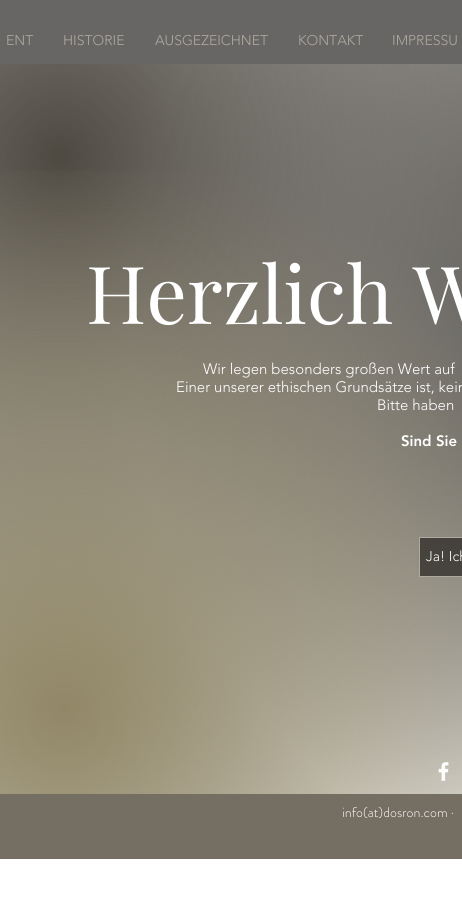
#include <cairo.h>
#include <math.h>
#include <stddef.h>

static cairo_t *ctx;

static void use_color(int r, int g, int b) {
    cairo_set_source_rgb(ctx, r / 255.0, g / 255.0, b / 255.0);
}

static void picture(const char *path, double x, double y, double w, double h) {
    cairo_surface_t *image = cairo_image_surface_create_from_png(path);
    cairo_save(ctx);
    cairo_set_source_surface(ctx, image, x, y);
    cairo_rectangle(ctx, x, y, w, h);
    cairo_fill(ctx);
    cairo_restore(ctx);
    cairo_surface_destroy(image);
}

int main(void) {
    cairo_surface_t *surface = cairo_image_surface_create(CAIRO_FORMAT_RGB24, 462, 907);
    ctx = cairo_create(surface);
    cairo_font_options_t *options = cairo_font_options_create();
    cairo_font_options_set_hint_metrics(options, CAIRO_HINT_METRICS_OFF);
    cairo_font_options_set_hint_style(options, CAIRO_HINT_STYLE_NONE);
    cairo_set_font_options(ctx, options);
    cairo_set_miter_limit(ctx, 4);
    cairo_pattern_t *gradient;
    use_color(255, 255, 255);
    cairo_paint(ctx);
    use_color(104, 102, 100);
    cairo_rectangle(ctx, 0, 0, 462, 64);
    cairo_fill(ctx);
    cairo_select_font_face(ctx, "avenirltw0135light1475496 Light", CAIRO_FONT_SLANT_NORMAL, CAIRO_FONT_WEIGHT_NORMAL);
    cairo_set_font_size(ctx, 14);
    use_color(173, 169, 160);
    cairo_move_to(ctx, 6, 45);
    cairo_show_text(ctx, "ENT");
    cairo_move_to(ctx, 63, 45);
    cairo_show_text(ctx, "HISTORIE");
    cairo_move_to(ctx, 155, 45);
    cairo_show_text(ctx, "AUSGEZEICHNET");
    cairo_move_to(ctx, 298, 45);
    cairo_show_text(ctx, "KONTAKT");
    cairo_move_to(ctx, 392, 45);
    cairo_show_text(ctx, "IMPRESSU");
    gradient = cairo_pattern_create_radial(743, 326, 0, 743, 326, 878);
    cairo_pattern_add_color_stop_rgba(gradient, 0, 0.153, 0.145, 0.129, 1);
    cairo_pattern_add_color_stop_rgba(gradient, 0.7, 1, 1, 1, 1);
    cairo_set_source(ctx, gradient);
    cairo_pattern_destroy(gradient);
    cairo_rectangle(ctx, 136, 64, 326, 730);
    cairo_fill(ctx);
    gradient = cairo_pattern_create_radial(60, 156, 0, 60, 156, 1119);
    cairo_pattern_add_color_stop_rgba(gradient, 0, 0.306, 0.29, 0.259, 1);
    cairo_pattern_add_color_stop_rgba(gradient, 0.7, 0.306, 0.29, 0.259, 0);
    cairo_set_source(ctx, gradient);
    cairo_pattern_destroy(gradient);
    cairo_rectangle(ctx, 0, 64, 462, 730);
    cairo_fill(ctx);
    gradient = cairo_pattern_create_radial(64, 707, 0, 64, 707, 1119);
    cairo_pattern_add_color_stop_rgba(gradient, 0, 0.569, 0.529, 0.4, 0.99);
    cairo_pattern_add_color_stop_rgba(gradient, 0.5, 0.569, 0.529, 0.4, 0);
    cairo_set_source(ctx, gradient);
    cairo_pattern_destroy(gradient);
    cairo_rectangle(ctx, 0, 171, 462, 623);
    cairo_fill(ctx);
    cairo_select_font_face(ctx, "Playfair Display", CAIRO_FONT_SLANT_NORMAL, CAIRO_FONT_WEIGHT_NORMAL);
    cairo_set_font_size(ctx, 80);
    use_color(255, 255, 255);
    cairo_move_to(ctx, 86, 324);
    cairo_show_text(ctx, "Herzlich W");
    cairo_select_font_face(ctx, "avenirltw0135light1475496 Light", CAIRO_FONT_SLANT_NORMAL, CAIRO_FONT_WEIGHT_NORMAL);
    cairo_set_font_size(ctx, 15);
    cairo_move_to(ctx, 203, 374);
    cairo_show_text(ctx, "Wir legen besonders großen Wert auf");
    cairo_move_to(ctx, 176, 392);
    cairo_show_text(ctx, "Einer unserer ethischen Grundsätze ist, kein");
    cairo_move_to(ctx, 377, 410);
    cairo_show_text(ctx, "Bitte haben");
    cairo_select_font_face(ctx, "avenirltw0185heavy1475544 Black", CAIRO_FONT_SLANT_NORMAL, CAIRO_FONT_WEIGHT_NORMAL);
    cairo_move_to(ctx, 401, 446);
    cairo_show_text(ctx, "Sind Sie");
    cairo_set_source_rgba(ctx, 0.153, 0.145, 0.129, 0.7);
    cairo_rectangle(ctx, 419.5, 537.5, 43, 39);
    cairo_fill_preserve(ctx);
    use_color(173, 169, 160);
    cairo_set_line_width(ctx, 1);
    cairo_stroke(ctx);
    cairo_select_font_face(ctx, "avenirltw0135light1475496 Light", CAIRO_FONT_SLANT_NORMAL, CAIRO_FONT_WEIGHT_NORMAL);
    cairo_set_font_size(ctx, 14);
    use_color(255, 255, 255);
    cairo_move_to(ctx, 426, 561);
    cairo_show_text(ctx, "Ja! Ich");
    picture("img1.png", 438, 762, 11, 19);
    use_color(117, 111, 99);
    cairo_rectangle(ctx, 0, 794, 462, 65);
    cairo_fill(ctx);
    cairo_select_font_face(ctx, "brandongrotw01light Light", CAIRO_FONT_SLANT_NORMAL, CAIRO_FONT_WEIGHT_NORMAL);
    use_color(255, 255, 255);
    cairo_move_to(ctx, 342, 817);
    cairo_show_text(ctx, "info(at)dosron.com ·");
    cairo_surface_write_to_png(surface, "result.png");
    cairo_font_options_destroy(options);
    cairo_destroy(ctx);
    cairo_surface_destroy(surface);
    return 0;
}
